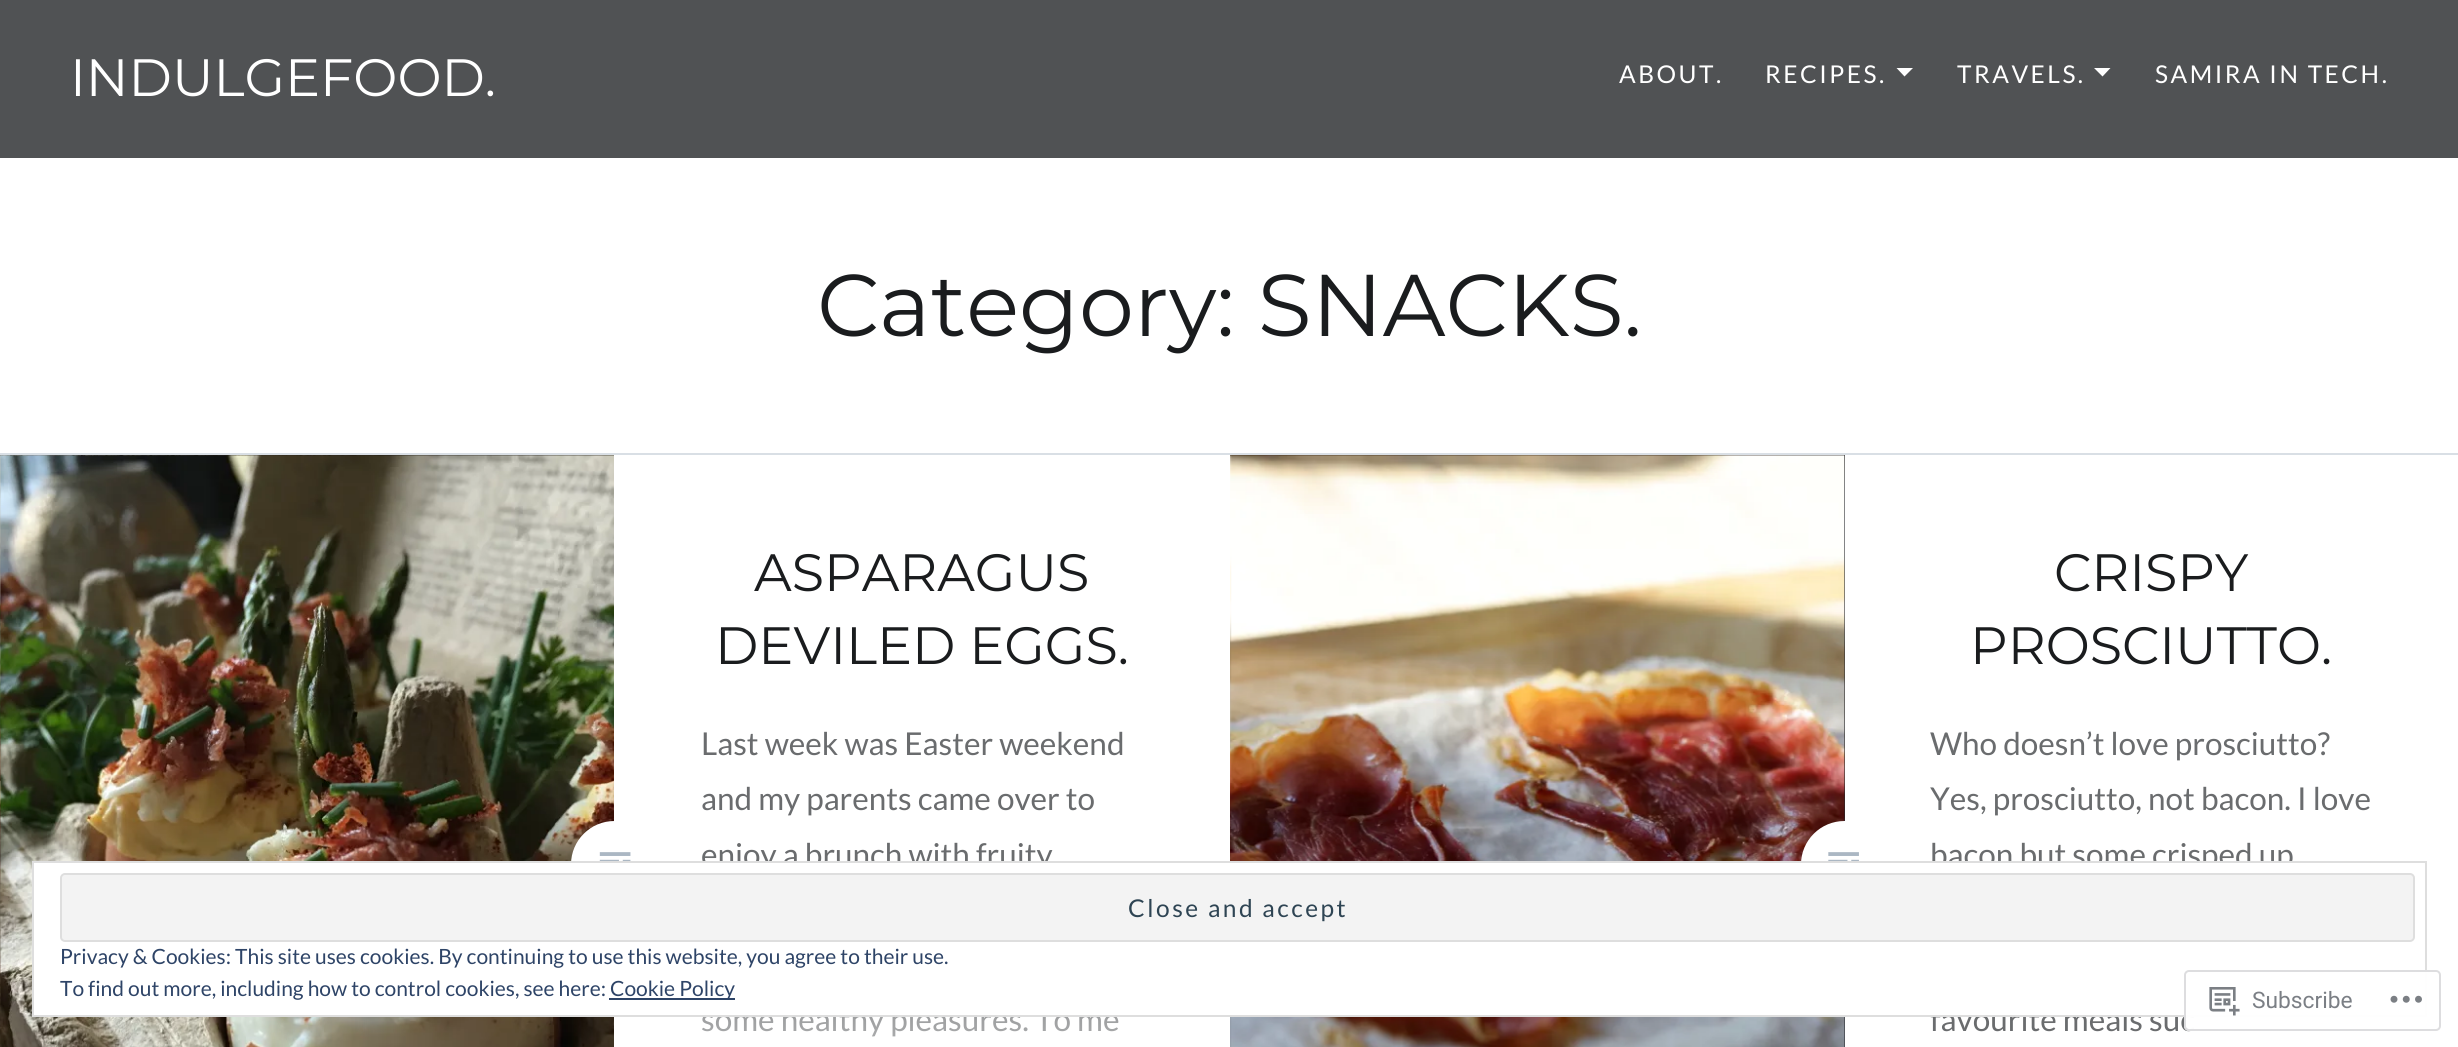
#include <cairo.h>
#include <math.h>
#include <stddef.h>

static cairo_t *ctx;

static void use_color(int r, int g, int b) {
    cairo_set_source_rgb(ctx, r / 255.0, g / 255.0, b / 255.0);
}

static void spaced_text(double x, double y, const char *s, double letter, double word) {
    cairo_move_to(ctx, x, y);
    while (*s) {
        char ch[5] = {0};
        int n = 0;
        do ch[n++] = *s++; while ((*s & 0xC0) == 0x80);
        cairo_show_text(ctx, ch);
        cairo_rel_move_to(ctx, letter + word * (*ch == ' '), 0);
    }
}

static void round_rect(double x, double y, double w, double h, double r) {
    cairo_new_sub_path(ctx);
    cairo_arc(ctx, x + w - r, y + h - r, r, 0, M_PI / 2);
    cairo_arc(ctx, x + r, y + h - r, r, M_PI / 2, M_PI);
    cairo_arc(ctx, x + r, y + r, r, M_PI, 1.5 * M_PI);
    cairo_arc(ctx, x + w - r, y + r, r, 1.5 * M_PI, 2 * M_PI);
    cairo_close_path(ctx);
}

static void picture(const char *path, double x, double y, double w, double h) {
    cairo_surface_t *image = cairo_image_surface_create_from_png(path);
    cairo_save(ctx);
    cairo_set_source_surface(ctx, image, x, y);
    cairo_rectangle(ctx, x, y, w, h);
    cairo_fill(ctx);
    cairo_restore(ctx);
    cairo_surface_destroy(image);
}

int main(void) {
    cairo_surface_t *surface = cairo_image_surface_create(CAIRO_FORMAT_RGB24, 2458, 1047);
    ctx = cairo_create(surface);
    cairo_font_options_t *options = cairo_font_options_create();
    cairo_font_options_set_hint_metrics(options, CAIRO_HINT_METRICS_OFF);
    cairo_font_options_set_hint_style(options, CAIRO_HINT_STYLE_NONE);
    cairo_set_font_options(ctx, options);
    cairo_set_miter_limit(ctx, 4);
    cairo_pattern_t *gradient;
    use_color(255, 255, 255);
    cairo_paint(ctx);
    use_color(80, 82, 84);
    cairo_rectangle(ctx, 0, 0, 2458, 158);
    cairo_fill(ctx);
    cairo_select_font_face(ctx, "Montserrat Thin", CAIRO_FONT_SLANT_NORMAL, CAIRO_FONT_WEIGHT_NORMAL);
    cairo_set_font_size(ctx, 52.5);
    use_color(255, 255, 255);
    cairo_move_to(ctx, 70, 96);
    cairo_show_text(ctx, "INDULGEFOOD.");
    cairo_select_font_face(ctx, "Lato", CAIRO_FONT_SLANT_NORMAL, CAIRO_FONT_WEIGHT_NORMAL);
    cairo_set_font_size(ctx, 24.5);
    spaced_text(1619, 83, "ABOUT.", 2.5, 0);
    spaced_text(1765, 83, "RECIPES.", 2.5, 0);
    cairo_new_path(ctx);
    cairo_move_to(ctx, 1896.5, 68);
    cairo_line_to(ctx, 1913, 68);
    cairo_line_to(ctx, 1904.5, 76.5);
    cairo_close_path(ctx);
    cairo_fill(ctx);
    spaced_text(1957, 83, "TRAVELS.", 2.5, 0);
    cairo_new_path(ctx);
    cairo_move_to(ctx, 2094, 68);
    cairo_line_to(ctx, 2110.5, 68);
    cairo_line_to(ctx, 2102.5, 76.5);
    cairo_close_path(ctx);
    cairo_fill(ctx);
    spaced_text(2155, 83, "SAMIRA IN TECH.", 2.5, 0);
    use_color(217, 223, 229);
    cairo_rectangle(ctx, 0, 453, 2458, 2);
    cairo_fill(ctx);
    cairo_select_font_face(ctx, "Montserrat Thin", CAIRO_FONT_SLANT_NORMAL, CAIRO_FONT_WEIGHT_NORMAL);
    cairo_set_font_size(ctx, 87.5);
    use_color(26, 28, 30);
    cairo_move_to(ctx, 817, 336);
    cairo_show_text(ctx, "Category: SNACKS.");
    picture("img1.png", 0, 455, 614, 592);
    use_color(255, 255, 255);
    cairo_arc(ctx, 614.5, 864.5, 43.5, 0, 2 * M_PI);
    cairo_fill(ctx);
    cairo_set_font_size(ctx, 52.5);
    use_color(26, 28, 30);
    cairo_move_to(ctx, 754, 591);
    cairo_show_text(ctx, "ASPARAGUS");
    cairo_move_to(ctx, 715, 664);
    cairo_show_text(ctx, "DEVILED EGGS.");
    cairo_select_font_face(ctx, "Lato", CAIRO_FONT_SLANT_NORMAL, CAIRO_FONT_WEIGHT_NORMAL);
    cairo_set_font_size(ctx, 31.5);
    use_color(106, 108, 110);
    cairo_move_to(ctx, 701, 755);
    cairo_show_text(ctx, "Last week was Easter weekend");
    cairo_move_to(ctx, 701, 810);
    cairo_show_text(ctx, "and my parents came over to");
    cairo_move_to(ctx, 701, 866);
    cairo_show_text(ctx, "enjoy a brunch with fruity");
    cairo_move_to(ctx, 701, 1031);
    cairo_show_text(ctx, "some healthy pleasures. To me");
    gradient = cairo_pattern_create_linear(922, 928, 922, 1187);
    cairo_pattern_add_color_stop_rgba(gradient, 0, 1, 1, 1, 0);
    cairo_pattern_add_color_stop_rgba(gradient, 1, 1, 1, 1, 1);
    cairo_set_source(ctx, gradient);
    cairo_pattern_destroy(gradient);
    cairo_rectangle(ctx, 701, 1017, 417, 20);
    cairo_fill(ctx);
    picture("img2.png", 599, 852, 32, 9);
    use_color(36, 38, 41);
    cairo_rectangle(ctx, 1844, 455, 1, 592);
    cairo_fill(ctx);
    picture("img3.png", 1230, 455, 615, 592);
    use_color(255, 255, 255);
    cairo_arc(ctx, 1844.5, 864.5, 43.5, 0, 2 * M_PI);
    cairo_fill(ctx);
    cairo_select_font_face(ctx, "Montserrat Thin", CAIRO_FONT_SLANT_NORMAL, CAIRO_FONT_WEIGHT_NORMAL);
    cairo_set_font_size(ctx, 52.5);
    use_color(26, 28, 30);
    cairo_move_to(ctx, 2054, 591);
    cairo_show_text(ctx, "CRISPY");
    cairo_move_to(ctx, 1970, 664);
    cairo_show_text(ctx, "PROSCIUTTO.");
    cairo_select_font_face(ctx, "Lato", CAIRO_FONT_SLANT_NORMAL, CAIRO_FONT_WEIGHT_NORMAL);
    cairo_set_font_size(ctx, 31.5);
    use_color(106, 108, 110);
    cairo_move_to(ctx, 1930, 755);
    cairo_show_text(ctx, "Who doesn’t love prosciutto?");
    cairo_move_to(ctx, 1930, 810);
    cairo_show_text(ctx, "Yes, prosciutto, not bacon. I love");
    cairo_move_to(ctx, 1930, 866);
    cairo_show_text(ctx, "bacon but some crisped up");
    cairo_move_to(ctx, 1930, 1031);
    cairo_show_text(ctx, "favourite meals suc");
    picture("img4.png", 1828, 852, 31, 9);
    use_color(255, 255, 255);
    cairo_rectangle(ctx, 34, 863, 2258, 152);
    cairo_fill(ctx);
    cairo_rectangle(ctx, 33, 862, 2393, 154);
    use_color(222, 222, 222);
    cairo_stroke(ctx);
    use_color(243, 243, 243);
    round_rect(61, 874, 2353, 67, 4);
    cairo_fill_preserve(ctx);
    use_color(222, 222, 222);
    cairo_stroke(ctx);
    cairo_set_font_size(ctx, 24.5);
    use_color(46, 68, 83);
    spaced_text(1128, 917, "Close and accept", 2.5, 0);
    cairo_set_font_size(ctx, 21);
    use_color(46, 68, 103);
    cairo_move_to(ctx, 60, 964);
    cairo_show_text(ctx, "Privacy & Cookies: This site uses cookies. By continuing to use this website, you agree to their use.");
    cairo_move_to(ctx, 60, 996);
    cairo_show_text(ctx, "To find out more, including how to control cookies, see here:");
    cairo_rectangle(ctx, 609, 998, 126, 2);
    cairo_fill(ctx);
    cairo_move_to(ctx, 610, 996);
    cairo_show_text(ctx, "Cookie Policy");
    cairo_set_source_rgba(ctx, 1, 1, 1, 0.98);
    round_rect(2184, 970, 257, 61, 5);
    cairo_fill(ctx);
    round_rect(2185, 971, 255, 59, 4);
    cairo_set_source_rgba(ctx, 0.863, 0.863, 0.871, 0.98);
    cairo_stroke(ctx);
    picture("img5.png", 2209, 987, 31, 29);
    cairo_select_font_face(ctx, "Roboto", CAIRO_FONT_SLANT_NORMAL, CAIRO_FONT_WEIGHT_NORMAL);
    cairo_set_font_size(ctx, 22.75);
    use_color(123, 127, 133);
    cairo_move_to(ctx, 2252, 1008);
    cairo_show_text(ctx, "Subscribe");
    picture("img6.png", 2390, 995, 32, 8);
    cairo_surface_write_to_png(surface, "result.png");
    cairo_font_options_destroy(options);
    cairo_destroy(ctx);
    cairo_surface_destroy(surface);
    return 0;
}
